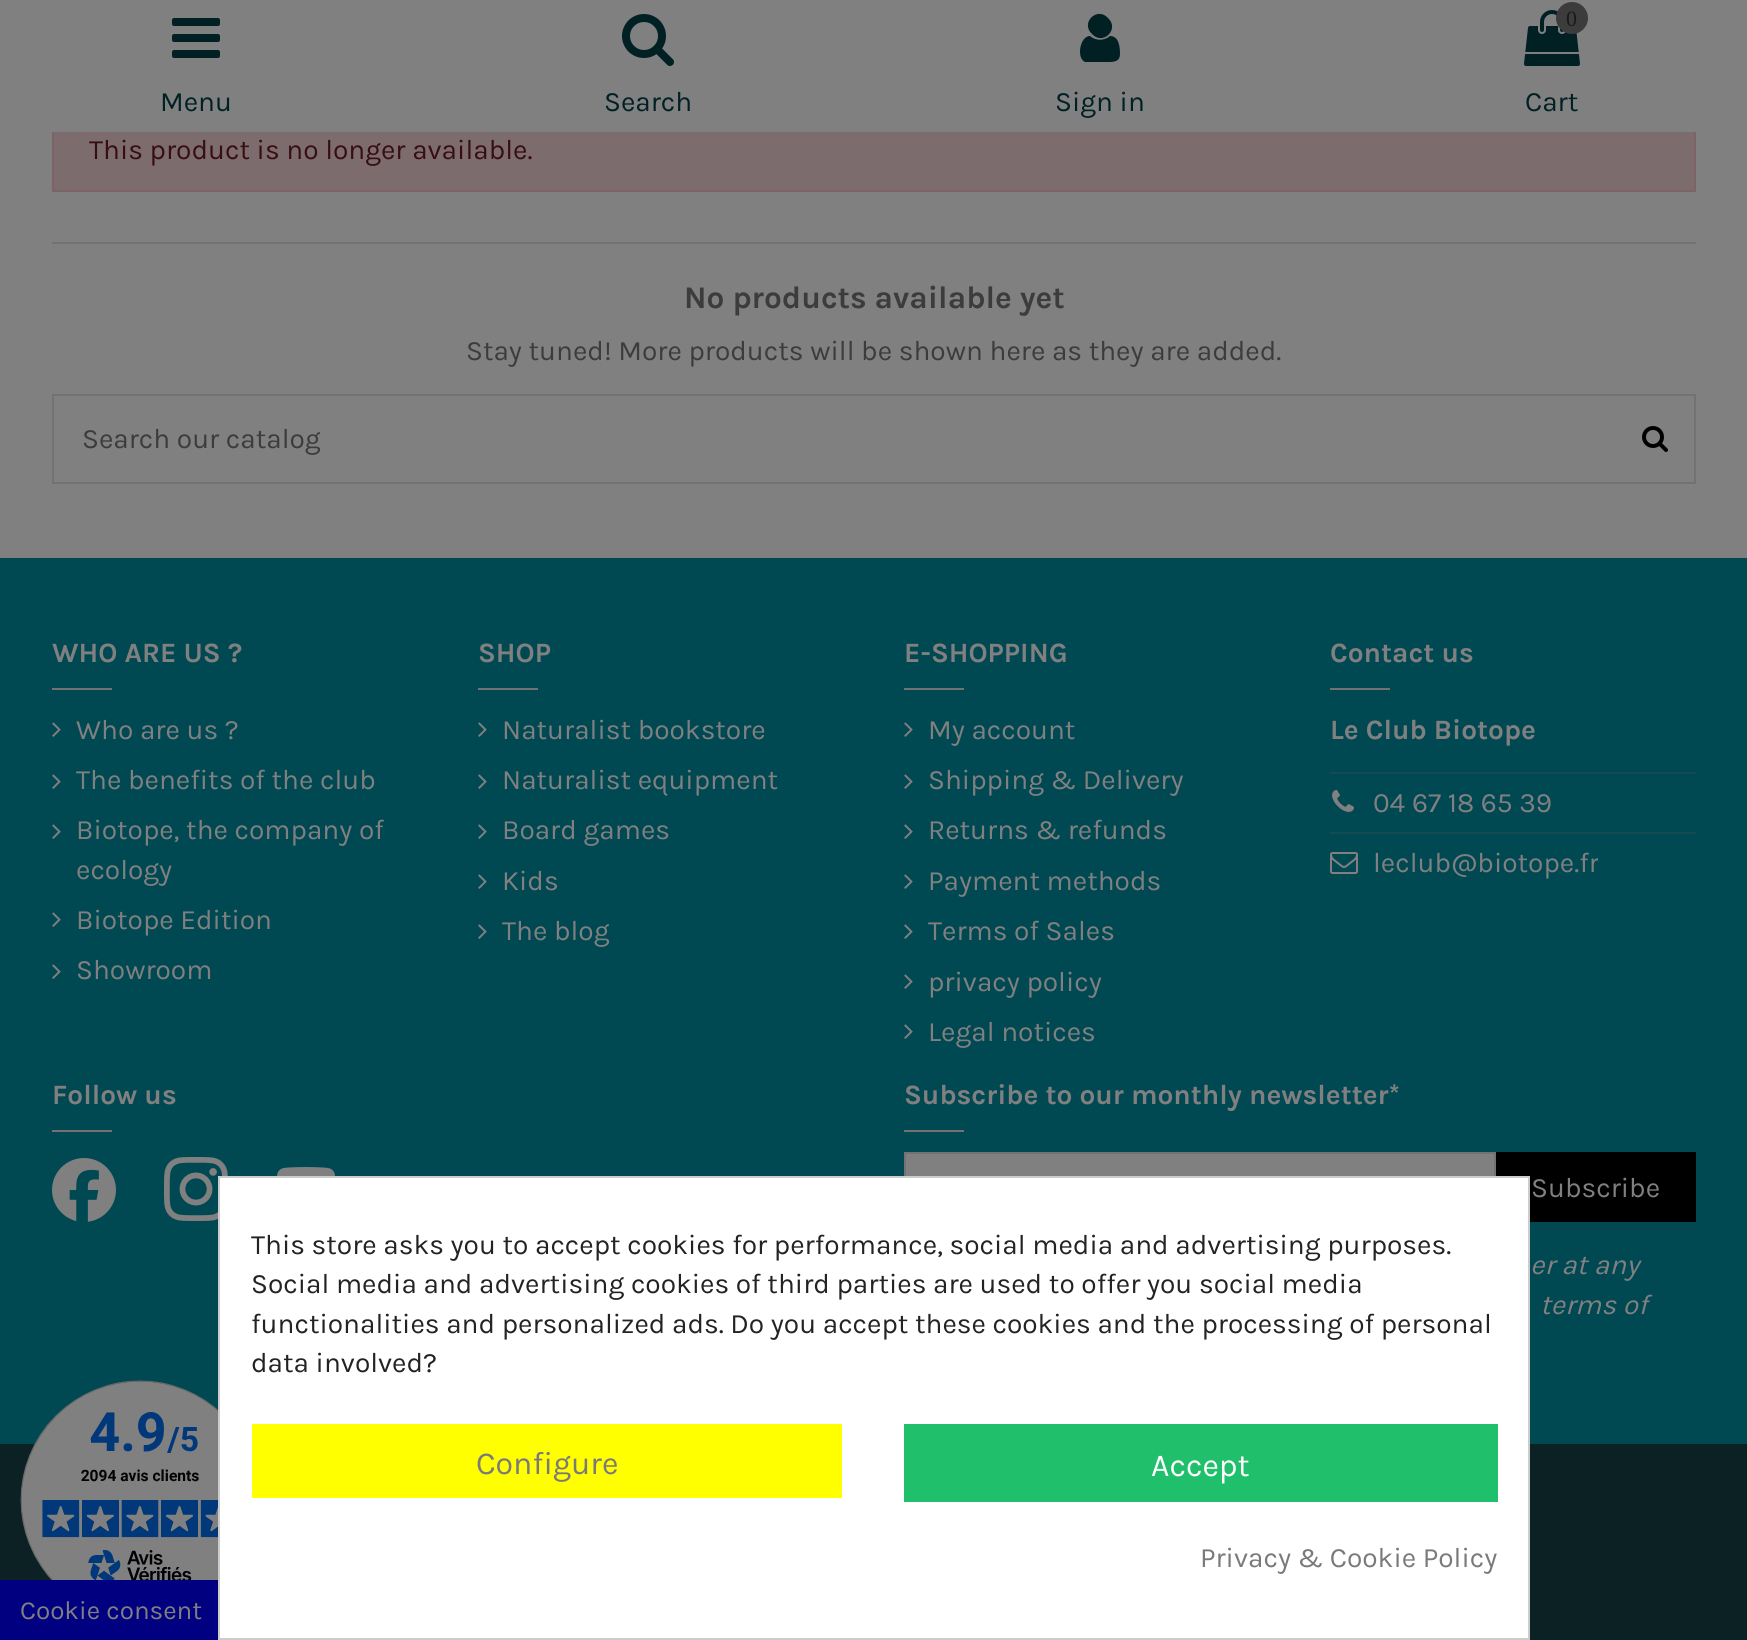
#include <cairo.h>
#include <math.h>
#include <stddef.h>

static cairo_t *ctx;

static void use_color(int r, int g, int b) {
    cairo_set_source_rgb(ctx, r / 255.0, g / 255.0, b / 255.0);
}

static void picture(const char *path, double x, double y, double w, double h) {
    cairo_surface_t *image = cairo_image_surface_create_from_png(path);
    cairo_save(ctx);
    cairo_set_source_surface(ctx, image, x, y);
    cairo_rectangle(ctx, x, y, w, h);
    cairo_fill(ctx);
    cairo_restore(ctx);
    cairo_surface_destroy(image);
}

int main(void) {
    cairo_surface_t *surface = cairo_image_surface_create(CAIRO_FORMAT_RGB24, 1747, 1640);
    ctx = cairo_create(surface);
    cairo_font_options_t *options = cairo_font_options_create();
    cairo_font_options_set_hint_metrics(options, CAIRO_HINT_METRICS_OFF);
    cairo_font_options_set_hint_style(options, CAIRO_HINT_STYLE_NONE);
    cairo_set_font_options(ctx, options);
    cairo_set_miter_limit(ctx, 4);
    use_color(128, 128, 128);
    cairo_paint(ctx);
    use_color(124, 108, 109);
    cairo_rectangle(ctx, 54, 132, 1640, 58);
    cairo_fill(ctx);
    cairo_rectangle(ctx, 53, 109, 1642, 82);
    use_color(123, 99, 102);
    cairo_stroke(ctx);
    use_color(128, 128, 128);
    cairo_rectangle(ctx, 52, 108, 1644, 24);
    cairo_fill(ctx);
    picture("img1.png", 172, 18, 48, 40);
    cairo_select_font_face(ctx, "Karla", CAIRO_FONT_SLANT_NORMAL, CAIRO_FONT_WEIGHT_NORMAL);
    cairo_set_font_size(ctx, 28);
    use_color(0, 32, 36);
    cairo_move_to(ctx, 160, 111);
    cairo_show_text(ctx, "Menu");
    picture("img2.png", 622, 14, 52, 52);
    cairo_move_to(ctx, 604, 111);
    cairo_show_text(ctx, "Search");
    cairo_new_path(ctx);
    cairo_move_to(ctx, 1120, 54);
    cairo_curve_to(ctx, 1120, 61, 1115, 62, 1109, 62);
    cairo_line_to(ctx, 1085, 62);
    cairo_curve_to(ctx, 1076, 58, 1080, 36, 1090, 36);
    cairo_curve_to(ctx, 1096, 41, 1104, 41, 1110, 36);
    cairo_curve_to(ctx, 1119, 36, 1120, 47, 1120, 54);
    cairo_close_path(ctx);
    cairo_move_to(ctx, 1108, 18);
    cairo_curve_to(ctx, 1120, 29, 1103, 46, 1092, 34);
    cairo_curve_to(ctx, 1080, 23, 1097, 6, 1108, 18);
    cairo_close_path(ctx);
    cairo_fill(ctx);
    cairo_move_to(ctx, 1055, 111);
    cairo_show_text(ctx, "Sign in");
    picture("img3.png", 1524, 10, 56, 56);
    use_color(60, 60, 60);
    cairo_arc(ctx, 1572, 18, 16, 0, 2 * M_PI);
    cairo_fill(ctx);
    cairo_select_font_face(ctx, "Liberation Serif", CAIRO_FONT_SLANT_NORMAL, CAIRO_FONT_WEIGHT_NORMAL);
    cairo_set_font_size(ctx, 22);
    use_color(26, 26, 26);
    cairo_move_to(ctx, 1566, 26);
    cairo_show_text(ctx, "0");
    cairo_select_font_face(ctx, "Karla", CAIRO_FONT_SLANT_NORMAL, CAIRO_FONT_WEIGHT_NORMAL);
    cairo_set_font_size(ctx, 28);
    use_color(0, 32, 36);
    cairo_move_to(ctx, 1525, 111);
    cairo_show_text(ctx, "Cart");
    use_color(57, 14, 18);
    cairo_move_to(ctx, 89, 159);
    cairo_show_text(ctx, "This product is no longer available.");
    use_color(114, 114, 114);
    cairo_rectangle(ctx, 52, 242, 1644, 2);
    cairo_fill(ctx);
    cairo_select_font_face(ctx, "Karla", CAIRO_FONT_SLANT_NORMAL, CAIRO_FONT_WEIGHT_BOLD);
    cairo_set_font_size(ctx, 31.5);
    use_color(60, 60, 60);
    cairo_move_to(ctx, 684, 308);
    cairo_show_text(ctx, "No products available yet");
    cairo_select_font_face(ctx, "Karla", CAIRO_FONT_SLANT_NORMAL, CAIRO_FONT_WEIGHT_NORMAL);
    cairo_set_font_size(ctx, 28);
    cairo_move_to(ctx, 466, 360);
    cairo_show_text(ctx, "Stay tuned! More products will be shown here as they are added.");
    cairo_rectangle(ctx, 53, 395, 1642, 88);
    use_color(114, 114, 114);
    cairo_stroke(ctx);
    use_color(60, 60, 60);
    cairo_move_to(ctx, 82, 448);
    cairo_show_text(ctx, "Search our catalog");
    picture("img4.png", 1642, 426, 26, 26);
    use_color(0, 72, 82);
    cairo_rectangle(ctx, 0, 558, 1747, 886);
    cairo_fill(ctx);
    cairo_select_font_face(ctx, "Karla", CAIRO_FONT_SLANT_NORMAL, CAIRO_FONT_WEIGHT_BOLD);
    use_color(128, 128, 128);
    cairo_move_to(ctx, 52, 662);
    cairo_show_text(ctx, "WHO ARE US ?");
    use_color(114, 114, 114);
    cairo_rectangle(ctx, 52, 688, 60, 2);
    cairo_fill(ctx);
    picture("img5.png", 52, 722, 9, 15);
    cairo_select_font_face(ctx, "Karla", CAIRO_FONT_SLANT_NORMAL, CAIRO_FONT_WEIGHT_NORMAL);
    use_color(128, 128, 128);
    cairo_move_to(ctx, 76, 739);
    cairo_show_text(ctx, "Who are us ?");
    picture("img5.png", 52, 774, 9, 15);
    cairo_move_to(ctx, 76, 789);
    cairo_show_text(ctx, "The benefits of the club");
    picture("img5.png", 52, 824, 9, 15);
    cairo_move_to(ctx, 76, 839);
    cairo_show_text(ctx, "Biotope, the company of");
    cairo_move_to(ctx, 76, 879);
    cairo_show_text(ctx, "ecology");
    picture("img5.png", 52, 912, 9, 15);
    cairo_move_to(ctx, 76, 929);
    cairo_show_text(ctx, "Biotope Edition");
    picture("img5.png", 52, 964, 9, 15);
    cairo_move_to(ctx, 76, 979);
    cairo_show_text(ctx, "Showroom");
    cairo_select_font_face(ctx, "Karla", CAIRO_FONT_SLANT_NORMAL, CAIRO_FONT_WEIGHT_BOLD);
    cairo_move_to(ctx, 478, 662);
    cairo_show_text(ctx, "SHOP");
    use_color(114, 114, 114);
    cairo_rectangle(ctx, 478, 688, 60, 2);
    cairo_fill(ctx);
    picture("img5.png", 478, 722, 9, 15);
    cairo_select_font_face(ctx, "Karla", CAIRO_FONT_SLANT_NORMAL, CAIRO_FONT_WEIGHT_NORMAL);
    use_color(128, 128, 128);
    cairo_move_to(ctx, 502, 739);
    cairo_show_text(ctx, "Naturalist bookstore");
    picture("img5.png", 478, 774, 9, 15);
    cairo_move_to(ctx, 502, 789);
    cairo_show_text(ctx, "Naturalist equipment");
    picture("img5.png", 478, 824, 9, 15);
    cairo_move_to(ctx, 502, 839);
    cairo_show_text(ctx, "Board games");
    picture("img5.png", 478, 874, 9, 15);
    cairo_move_to(ctx, 502, 890);
    cairo_show_text(ctx, "Kids");
    picture("img5.png", 478, 924, 9, 15);
    cairo_move_to(ctx, 502, 940);
    cairo_show_text(ctx, "The blog");
    cairo_select_font_face(ctx, "Karla", CAIRO_FONT_SLANT_NORMAL, CAIRO_FONT_WEIGHT_BOLD);
    cairo_move_to(ctx, 904, 662);
    cairo_show_text(ctx, "E-SHOPPING");
    use_color(114, 114, 114);
    cairo_rectangle(ctx, 904, 688, 60, 2);
    cairo_fill(ctx);
    picture("img5.png", 904, 722, 9, 15);
    cairo_select_font_face(ctx, "Karla", CAIRO_FONT_SLANT_NORMAL, CAIRO_FONT_WEIGHT_NORMAL);
    use_color(128, 128, 128);
    cairo_move_to(ctx, 928, 739);
    cairo_show_text(ctx, "My account");
    picture("img5.png", 904, 774, 9, 15);
    cairo_move_to(ctx, 928, 789);
    cairo_show_text(ctx, "Shipping & Delivery");
    picture("img5.png", 904, 824, 9, 15);
    cairo_move_to(ctx, 928, 839);
    cairo_show_text(ctx, "Returns & refunds");
    picture("img5.png", 904, 874, 9, 15);
    cairo_move_to(ctx, 928, 890);
    cairo_show_text(ctx, "Payment methods");
    picture("img5.png", 904, 924, 9, 15);
    cairo_move_to(ctx, 928, 940);
    cairo_show_text(ctx, "Terms of Sales");
    picture("img5.png", 904, 974, 9, 15);
    cairo_move_to(ctx, 928, 991);
    cairo_show_text(ctx, "privacy policy");
    picture("img5.png", 904, 1024, 9, 15);
    cairo_move_to(ctx, 928, 1041);
    cairo_show_text(ctx, "Legal notices");
    cairo_select_font_face(ctx, "Karla", CAIRO_FONT_SLANT_NORMAL, CAIRO_FONT_WEIGHT_BOLD);
    cairo_move_to(ctx, 1330, 662);
    cairo_show_text(ctx, "Contact us");
    use_color(114, 114, 114);
    cairo_rectangle(ctx, 1330, 688, 60, 2);
    cairo_fill(ctx);
    use_color(128, 128, 128);
    cairo_move_to(ctx, 1330, 739);
    cairo_show_text(ctx, "Le Club Biotope");
    use_color(20, 74, 82);
    cairo_rectangle(ctx, 1330, 772, 366, 2);
    cairo_fill(ctx);
    picture("img6.png", 1332, 790, 22, 22);
    cairo_select_font_face(ctx, "Karla", CAIRO_FONT_SLANT_NORMAL, CAIRO_FONT_WEIGHT_NORMAL);
    use_color(128, 128, 128);
    cairo_move_to(ctx, 1373, 812);
    cairo_show_text(ctx, "04 67 18 65 39");
    use_color(20, 74, 82);
    cairo_rectangle(ctx, 1330, 832, 366, 2);
    cairo_fill(ctx);
    picture("img7.png", 1330, 852, 28, 22);
    cairo_save(ctx);
    cairo_rectangle(ctx, 1372, 844, 226, 40);
    cairo_clip(ctx);
    use_color(128, 128, 128);
    cairo_move_to(ctx, 1373, 872);
    cairo_show_text(ctx, "leclub@biotope.fr");
    cairo_restore(ctx);
    cairo_select_font_face(ctx, "Karla", CAIRO_FONT_SLANT_NORMAL, CAIRO_FONT_WEIGHT_BOLD);
    use_color(128, 128, 128);
    cairo_move_to(ctx, 52, 1104);
    cairo_show_text(ctx, "Follow us");
    use_color(114, 114, 114);
    cairo_rectangle(ctx, 52, 1130, 60, 2);
    cairo_fill(ctx);
    picture("img8.png", 52, 1158, 64, 64);
    picture("img9.png", 164, 1157, 64, 64);
    picture("img10.png", 276, 1167, 60, 9);
    use_color(128, 128, 128);
    cairo_move_to(ctx, 904, 1104);
    cairo_show_text(ctx, "Subscribe to our monthly newsletter*");
    use_color(114, 114, 114);
    cairo_rectangle(ctx, 904, 1130, 60, 2);
    cairo_fill(ctx);
    use_color(128, 128, 128);
    cairo_rectangle(ctx, 906, 1154, 588, 22);
    cairo_fill(ctx);
    cairo_rectangle(ctx, 905, 1153, 590, 78);
    use_color(114, 114, 114);
    cairo_stroke(ctx);
    use_color(0, 0, 0);
    cairo_rectangle(ctx, 1496, 1152, 200, 70);
    cairo_fill(ctx);
    cairo_select_font_face(ctx, "Karla", CAIRO_FONT_SLANT_NORMAL, CAIRO_FONT_WEIGHT_NORMAL);
    use_color(128, 128, 128);
    cairo_move_to(ctx, 1531, 1197);
    cairo_show_text(ctx, "Subscribe");
    cairo_select_font_face(ctx, "Karla", CAIRO_FONT_SLANT_ITALIC, CAIRO_FONT_WEIGHT_NORMAL);
    cairo_move_to(ctx, 1530, 1274);
    cairo_show_text(ctx, "er at any");
    cairo_move_to(ctx, 1540, 1314);
    cairo_show_text(ctx, "terms of");
    use_color(12, 33, 36);
    cairo_rectangle(ctx, 0, 1444, 1747, 196);
    cairo_fill(ctx);
    picture("img11.png", 20, 1380, 198, 200);
    use_color(255, 255, 255);
    cairo_rectangle(ctx, 219, 1177, 1310, 462);
    cairo_fill_preserve(ctx);
    use_color(204, 204, 204);
    cairo_stroke(ctx);
    cairo_select_font_face(ctx, "Karla", CAIRO_FONT_SLANT_NORMAL, CAIRO_FONT_WEIGHT_NORMAL);
    use_color(35, 35, 35);
    cairo_move_to(ctx, 251, 1254);
    cairo_show_text(ctx, "This store asks you to accept cookies for performance, social media and advertising purposes.");
    cairo_move_to(ctx, 251, 1293);
    cairo_show_text(ctx, "Social media and advertising cookies of third parties are used to offer you social media");
    cairo_move_to(ctx, 251, 1333);
    cairo_show_text(ctx, "functionalities and personalized ads. Do you accept these cookies and the processing of personal");
    cairo_move_to(ctx, 251, 1372);
    cairo_show_text(ctx, "data involved?");
    use_color(255, 255, 0);
    cairo_rectangle(ctx, 252, 1424, 590, 74);
    cairo_fill(ctx);
    cairo_set_font_size(ctx, 32);
    use_color(122, 122, 122);
    cairo_move_to(ctx, 476, 1474);
    cairo_show_text(ctx, "Configure");
    use_color(32, 191, 107);
    cairo_rectangle(ctx, 904, 1424, 594, 78);
    cairo_fill(ctx);
    use_color(255, 255, 255);
    cairo_move_to(ctx, 1151, 1476);
    cairo_show_text(ctx, "Accept");
    cairo_set_font_size(ctx, 28);
    use_color(122, 122, 122);
    cairo_move_to(ctx, 1200, 1567);
    cairo_show_text(ctx, "Privacy & Cookie Policy");
    use_color(0, 0, 128);
    cairo_rectangle(ctx, 0, 1580, 218, 60);
    cairo_fill(ctx);
    cairo_set_font_size(ctx, 26);
    use_color(128, 128, 128);
    cairo_move_to(ctx, 20, 1619);
    cairo_show_text(ctx, "Cookie consent");
    cairo_surface_write_to_png(surface, "result.png");
    cairo_font_options_destroy(options);
    cairo_destroy(ctx);
    cairo_surface_destroy(surface);
    return 0;
}
